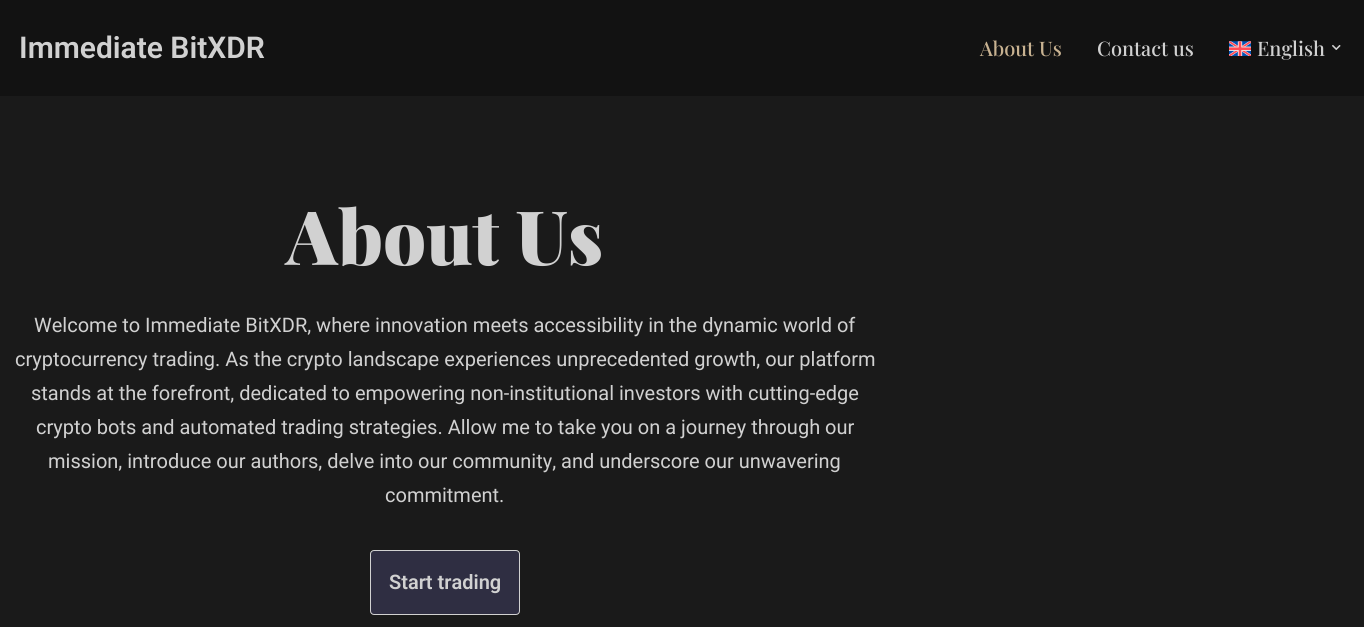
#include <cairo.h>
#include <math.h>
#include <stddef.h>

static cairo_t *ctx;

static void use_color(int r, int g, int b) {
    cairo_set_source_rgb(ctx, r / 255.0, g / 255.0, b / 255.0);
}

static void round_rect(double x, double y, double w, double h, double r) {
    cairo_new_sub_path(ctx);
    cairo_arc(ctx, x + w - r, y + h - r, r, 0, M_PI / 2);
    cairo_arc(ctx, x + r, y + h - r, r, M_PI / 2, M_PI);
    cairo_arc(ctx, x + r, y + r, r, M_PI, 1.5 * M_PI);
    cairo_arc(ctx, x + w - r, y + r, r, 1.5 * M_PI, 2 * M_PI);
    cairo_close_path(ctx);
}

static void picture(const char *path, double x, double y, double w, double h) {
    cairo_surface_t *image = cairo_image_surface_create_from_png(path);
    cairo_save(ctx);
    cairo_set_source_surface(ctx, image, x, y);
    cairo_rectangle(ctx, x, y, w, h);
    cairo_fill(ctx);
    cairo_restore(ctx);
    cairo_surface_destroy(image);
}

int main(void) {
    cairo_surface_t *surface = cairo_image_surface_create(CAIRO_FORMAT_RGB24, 1364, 627);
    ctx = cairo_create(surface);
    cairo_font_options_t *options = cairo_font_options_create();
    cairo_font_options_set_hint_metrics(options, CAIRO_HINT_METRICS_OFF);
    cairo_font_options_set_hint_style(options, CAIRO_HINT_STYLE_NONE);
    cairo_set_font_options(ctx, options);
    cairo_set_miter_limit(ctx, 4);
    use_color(18, 18, 18);
    cairo_paint(ctx);
    cairo_select_font_face(ctx, "Roboto SemiBold", CAIRO_FONT_SLANT_NORMAL, CAIRO_FONT_WEIGHT_NORMAL);
    cairo_set_font_size(ctx, 30);
    use_color(209, 209, 209);
    cairo_move_to(ctx, 19, 58);
    cairo_show_text(ctx, "Immediate BitXDR");
    cairo_select_font_face(ctx, "Playfair Display Medium", CAIRO_FONT_SLANT_NORMAL, CAIRO_FONT_WEIGHT_NORMAL);
    cairo_set_font_size(ctx, 20);
    use_color(200, 178, 145);
    cairo_move_to(ctx, 980, 56);
    cairo_show_text(ctx, "About Us");
    use_color(209, 209, 209);
    cairo_move_to(ctx, 1097, 56);
    cairo_show_text(ctx, "Contact us");
    picture("img1.png", 1229, 41, 22, 15);
    cairo_move_to(ctx, 1257, 56);
    cairo_show_text(ctx, "English");
    picture("img2.png", 1332, 45, 9, 5);
    use_color(26, 26, 26);
    cairo_rectangle(ctx, 0, 96, 1364, 531);
    cairo_fill(ctx);
    cairo_select_font_face(ctx, "Playfair Display Black", CAIRO_FONT_SLANT_NORMAL, CAIRO_FONT_WEIGHT_NORMAL);
    cairo_set_font_size(ctx, 75);
    use_color(209, 209, 209);
    cairo_move_to(ctx, 286, 265);
    cairo_show_text(ctx, "About Us");
    cairo_select_font_face(ctx, "Roboto", CAIRO_FONT_SLANT_NORMAL, CAIRO_FONT_WEIGHT_NORMAL);
    cairo_set_font_size(ctx, 20);
    cairo_move_to(ctx, 34, 332);
    cairo_show_text(ctx, "Welcome to Immediate BitXDR, where innovation meets accessibility in the dynamic world of");
    cairo_move_to(ctx, 15, 366);
    cairo_show_text(ctx, "cryptocurrency trading. As the crypto landscape experiences unprecedented growth, our platform");
    cairo_move_to(ctx, 31, 400);
    cairo_show_text(ctx, "stands at the forefront, dedicated to empowering non-institutional investors with cutting-edge");
    cairo_move_to(ctx, 36, 434);
    cairo_show_text(ctx, "crypto bots and automated trading strategies. Allow me to take you on a journey through our");
    cairo_move_to(ctx, 48, 468);
    cairo_show_text(ctx, "mission, introduce our authors, delve into our community, and underscore our unwavering");
    cairo_move_to(ctx, 385, 502);
    cairo_show_text(ctx, "commitment.");
    use_color(47, 46, 66);
    round_rect(370.5, 550.5, 149, 64, 3.5);
    cairo_fill_preserve(ctx);
    use_color(209, 209, 209);
    cairo_set_line_width(ctx, 1);
    cairo_stroke(ctx);
    cairo_select_font_face(ctx, "Roboto SemiBold", CAIRO_FONT_SLANT_NORMAL, CAIRO_FONT_WEIGHT_NORMAL);
    cairo_move_to(ctx, 389, 589);
    cairo_show_text(ctx, "Start trading");
    cairo_surface_write_to_png(surface, "result.png");
    cairo_font_options_destroy(options);
    cairo_destroy(ctx);
    cairo_surface_destroy(surface);
    return 0;
}
